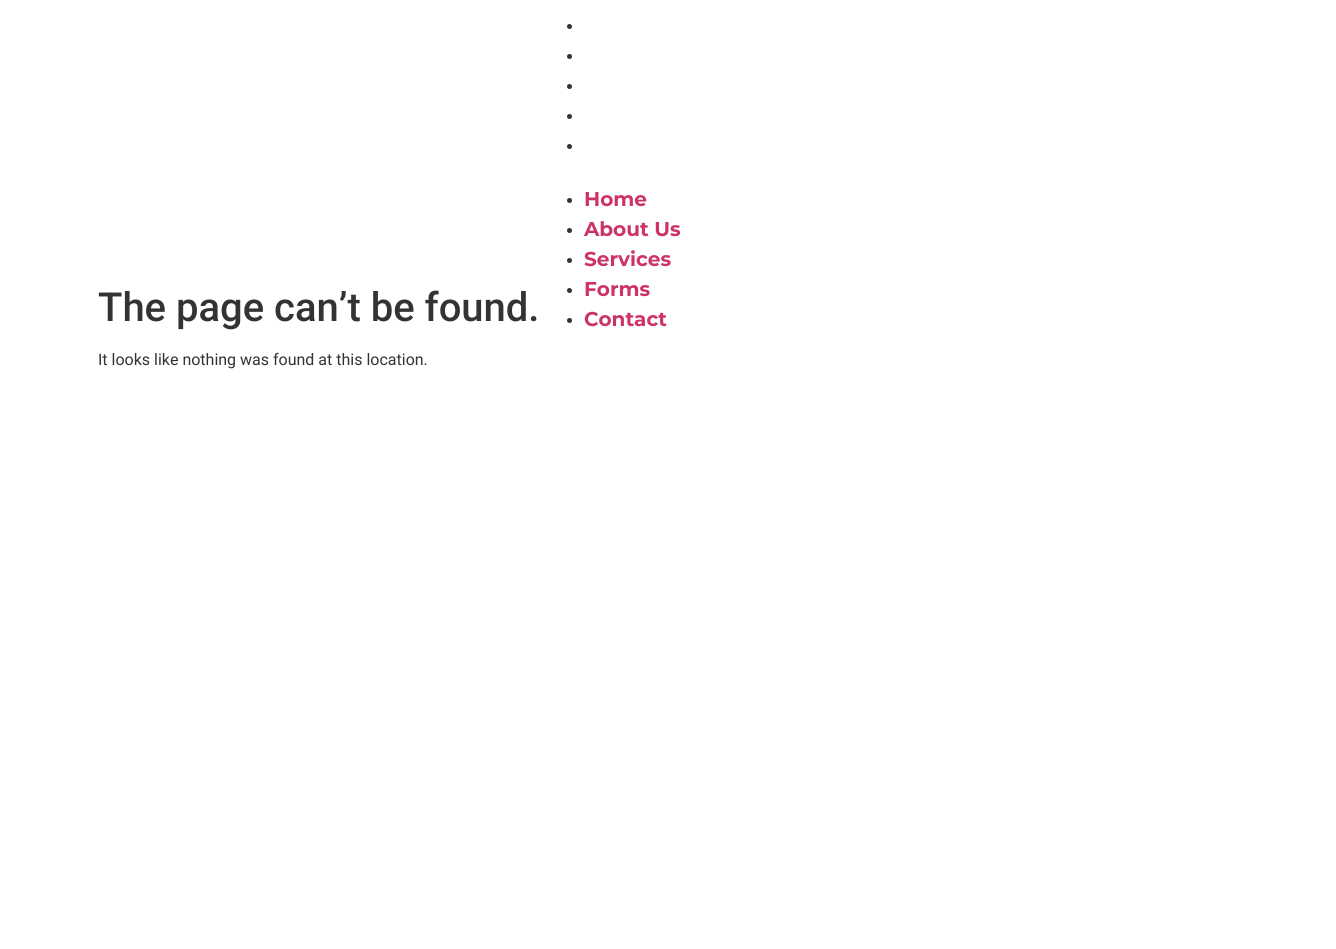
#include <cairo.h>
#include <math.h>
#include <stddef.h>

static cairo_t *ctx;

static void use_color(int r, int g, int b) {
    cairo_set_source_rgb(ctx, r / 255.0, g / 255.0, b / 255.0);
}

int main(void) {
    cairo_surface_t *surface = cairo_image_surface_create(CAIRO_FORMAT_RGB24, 1336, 949);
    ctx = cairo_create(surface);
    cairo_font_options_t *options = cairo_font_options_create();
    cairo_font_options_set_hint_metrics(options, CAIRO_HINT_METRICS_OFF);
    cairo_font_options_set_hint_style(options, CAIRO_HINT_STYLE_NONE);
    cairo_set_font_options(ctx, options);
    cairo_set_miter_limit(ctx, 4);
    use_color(255, 255, 255);
    cairo_paint(ctx);
    cairo_select_font_face(ctx, "Roboto Medium", CAIRO_FONT_SLANT_NORMAL, CAIRO_FONT_WEIGHT_NORMAL);
    cairo_set_font_size(ctx, 40);
    use_color(51, 51, 51);
    cairo_move_to(ctx, 98, 321);
    cairo_show_text(ctx, "The page can’t be found.");
    cairo_select_font_face(ctx, "Roboto", CAIRO_FONT_SLANT_NORMAL, CAIRO_FONT_WEIGHT_NORMAL);
    cairo_set_font_size(ctx, 16);
    cairo_move_to(ctx, 98, 365);
    cairo_show_text(ctx, "It looks like nothing was found at this location.");
    cairo_new_path(ctx);
    cairo_arc(ctx, 569.5, 26.5, 2.5, 0, 2 * M_PI);
    cairo_fill(ctx);
    cairo_arc(ctx, 569.5, 56.5, 2.5, 0, 2 * M_PI);
    cairo_fill(ctx);
    cairo_arc(ctx, 569.5, 86.5, 2.5, 0, 2 * M_PI);
    cairo_fill(ctx);
    cairo_arc(ctx, 569.5, 116.5, 2.5, 0, 2 * M_PI);
    cairo_fill(ctx);
    cairo_arc(ctx, 569.5, 146.5, 2.5, 0, 2 * M_PI);
    cairo_fill(ctx);
    cairo_arc(ctx, 569.5, 200.5, 2.5, 0, 2 * M_PI);
    cairo_fill(ctx);
    cairo_select_font_face(ctx, "Montserrat", CAIRO_FONT_SLANT_NORMAL, CAIRO_FONT_WEIGHT_BOLD);
    cairo_set_font_size(ctx, 20);
    use_color(204, 51, 102);
    cairo_move_to(ctx, 584, 206);
    cairo_show_text(ctx, "Home");
    use_color(51, 51, 51);
    cairo_new_path(ctx);
    cairo_arc(ctx, 569.5, 230.5, 2.5, 0, 2 * M_PI);
    cairo_fill(ctx);
    use_color(204, 51, 102);
    cairo_move_to(ctx, 584, 236);
    cairo_show_text(ctx, "About Us");
    use_color(51, 51, 51);
    cairo_new_path(ctx);
    cairo_arc(ctx, 569.5, 260.5, 2.5, 0, 2 * M_PI);
    cairo_fill(ctx);
    use_color(204, 51, 102);
    cairo_move_to(ctx, 584, 266);
    cairo_show_text(ctx, "Services");
    use_color(51, 51, 51);
    cairo_new_path(ctx);
    cairo_arc(ctx, 569.5, 290.5, 2.5, 0, 2 * M_PI);
    cairo_fill(ctx);
    use_color(204, 51, 102);
    cairo_move_to(ctx, 584, 296);
    cairo_show_text(ctx, "Forms");
    use_color(51, 51, 51);
    cairo_new_path(ctx);
    cairo_arc(ctx, 569.5, 320.5, 2.5, 0, 2 * M_PI);
    cairo_fill(ctx);
    use_color(204, 51, 102);
    cairo_move_to(ctx, 584, 326);
    cairo_show_text(ctx, "Contact");
    cairo_surface_write_to_png(surface, "result.png");
    cairo_font_options_destroy(options);
    cairo_destroy(ctx);
    cairo_surface_destroy(surface);
    return 0;
}
